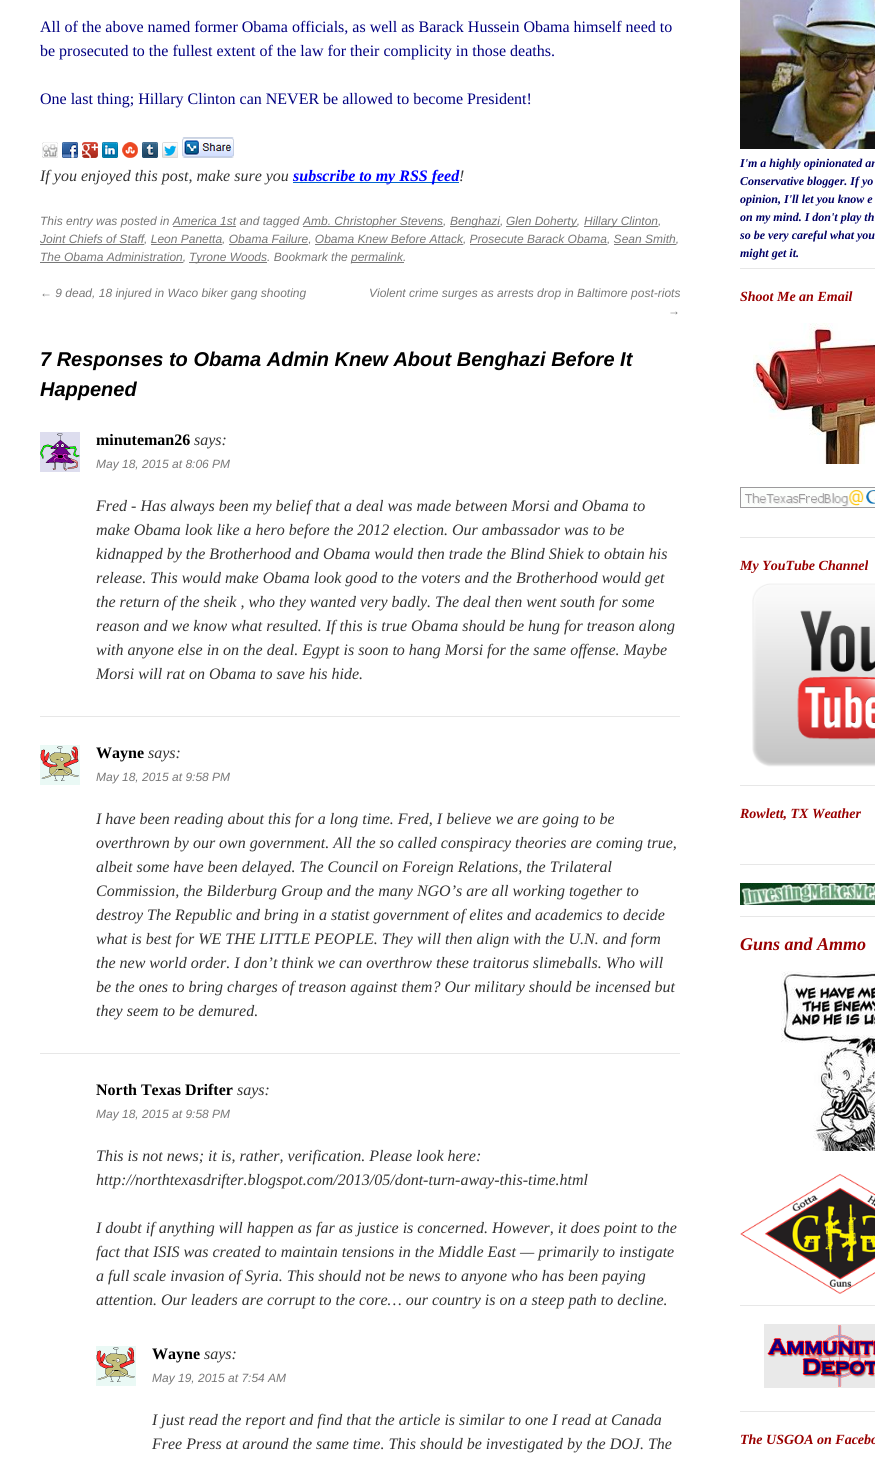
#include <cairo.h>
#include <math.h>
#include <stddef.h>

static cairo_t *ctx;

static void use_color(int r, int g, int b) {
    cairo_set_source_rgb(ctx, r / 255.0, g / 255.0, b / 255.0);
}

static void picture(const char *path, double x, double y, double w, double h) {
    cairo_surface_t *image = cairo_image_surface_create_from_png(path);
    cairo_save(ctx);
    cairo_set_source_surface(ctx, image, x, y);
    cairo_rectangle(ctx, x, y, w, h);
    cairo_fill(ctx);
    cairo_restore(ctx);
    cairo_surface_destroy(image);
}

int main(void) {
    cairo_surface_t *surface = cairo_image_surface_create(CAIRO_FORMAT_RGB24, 875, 1462);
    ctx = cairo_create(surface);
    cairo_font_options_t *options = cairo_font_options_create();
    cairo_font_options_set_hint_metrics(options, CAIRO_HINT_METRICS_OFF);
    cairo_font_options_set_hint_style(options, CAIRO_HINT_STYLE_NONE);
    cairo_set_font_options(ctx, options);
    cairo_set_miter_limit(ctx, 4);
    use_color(255, 255, 255);
    cairo_paint(ctx);
    cairo_select_font_face(ctx, "Liberation Serif", CAIRO_FONT_SLANT_NORMAL, CAIRO_FONT_WEIGHT_NORMAL);
    cairo_set_font_size(ctx, 16);
    use_color(0, 0, 128);
    cairo_move_to(ctx, 40, 32);
    cairo_show_text(ctx, "All of the above named former Obama officials, as well as Barack Hussein Obama himself need to");
    cairo_move_to(ctx, 40, 56);
    cairo_show_text(ctx, "be prosecuted to the fullest extent of the law for their complicity in those deaths.");
    cairo_move_to(ctx, 40, 104);
    cairo_show_text(ctx, "One last thing; Hillary Clinton can NEVER be allowed to become President!");
    picture("img1.png", 42, 142, 16, 16);
    picture("img2.png", 62, 142, 16, 16);
    picture("img3.png", 82, 142, 16, 16);
    picture("img4.png", 102, 142, 16, 16);
    picture("img5.png", 122, 142, 16, 16);
    picture("img6.png", 142, 142, 16, 16);
    picture("img7.png", 162, 142, 16, 16);
    picture("img8.png", 182, 137, 52, 21);
    cairo_select_font_face(ctx, "Liberation Serif", CAIRO_FONT_SLANT_ITALIC, CAIRO_FONT_WEIGHT_NORMAL);
    use_color(51, 51, 51);
    cairo_move_to(ctx, 40, 181);
    cairo_show_text(ctx, "If you enjoyed this post, make sure you");
    use_color(0, 102, 204);
    cairo_rectangle(ctx, 293, 182, 166, 1);
    cairo_fill(ctx);
    cairo_select_font_face(ctx, "Liberation Serif", CAIRO_FONT_SLANT_ITALIC, CAIRO_FONT_WEIGHT_BOLD);
    use_color(0, 0, 255);
    cairo_move_to(ctx, 293, 181);
    cairo_show_text(ctx, "subscribe to my RSS feed");
    cairo_select_font_face(ctx, "Liberation Serif", CAIRO_FONT_SLANT_ITALIC, CAIRO_FONT_WEIGHT_NORMAL);
    use_color(51, 51, 51);
    cairo_move_to(ctx, 459, 181);
    cairo_show_text(ctx, "!");
    cairo_select_font_face(ctx, "Liberation Sans", CAIRO_FONT_SLANT_ITALIC, CAIRO_FONT_WEIGHT_NORMAL);
    cairo_set_font_size(ctx, 12);
    use_color(119, 119, 119);
    cairo_move_to(ctx, 40, 225);
    cairo_show_text(ctx, "This entry was posted in America 1st and tagged");
    cairo_rectangle(ctx, 303, 226, 140, 1);
    cairo_fill(ctx);
    cairo_move_to(ctx, 303, 225);
    cairo_show_text(ctx, "Amb. Christopher Stevens,");
    cairo_rectangle(ctx, 450, 226, 50, 1);
    cairo_fill(ctx);
    cairo_move_to(ctx, 450, 225);
    cairo_show_text(ctx, "Benghazi,");
    cairo_rectangle(ctx, 506, 226, 71, 1);
    cairo_fill(ctx);
    cairo_move_to(ctx, 506, 225);
    cairo_show_text(ctx, "Glen Doherty,");
    cairo_rectangle(ctx, 584, 226, 74, 1);
    cairo_fill(ctx);
    cairo_move_to(ctx, 584, 225);
    cairo_show_text(ctx, "Hillary Clinton,");
    cairo_rectangle(ctx, 173, 226, 63, 1);
    cairo_fill(ctx);
    cairo_rectangle(ctx, 40, 244, 104, 1);
    cairo_fill(ctx);
    cairo_move_to(ctx, 40, 243);
    cairo_show_text(ctx, "Joint Chiefs of Staff, Leon Panetta, Obama Failure, Obama Knew Before Attack, Prosecute Barack Obama, Sean Smith,");
    cairo_rectangle(ctx, 151, 244, 71, 1);
    cairo_fill(ctx);
    cairo_rectangle(ctx, 229, 244, 79, 1);
    cairo_fill(ctx);
    cairo_rectangle(ctx, 315, 244, 148, 1);
    cairo_fill(ctx);
    cairo_rectangle(ctx, 470, 244, 137, 1);
    cairo_fill(ctx);
    cairo_rectangle(ctx, 614, 244, 62, 1);
    cairo_fill(ctx);
    cairo_rectangle(ctx, 40, 262, 143, 1);
    cairo_fill(ctx);
    cairo_move_to(ctx, 40, 261);
    cairo_show_text(ctx, "The Obama Administration,");
    cairo_rectangle(ctx, 189, 262, 78, 1);
    cairo_fill(ctx);
    cairo_move_to(ctx, 189, 261);
    cairo_show_text(ctx, "Tyrone Woods. Bookmark the");
    cairo_rectangle(ctx, 351, 262, 53, 1);
    cairo_fill(ctx);
    cairo_move_to(ctx, 351, 261);
    cairo_show_text(ctx, "permalink.");
    cairo_move_to(ctx, 40, 297);
    cairo_show_text(ctx, "← 9 dead, 18 injured in Waco biker gang shooting");
    cairo_move_to(ctx, 369, 297);
    cairo_show_text(ctx, "Violent crime surges as arrests drop in Baltimore post-riots");
    cairo_move_to(ctx, 668, 315);
    cairo_show_text(ctx, "→");
    cairo_select_font_face(ctx, "Liberation Sans", CAIRO_FONT_SLANT_ITALIC, CAIRO_FONT_WEIGHT_BOLD);
    cairo_set_font_size(ctx, 20);
    use_color(0, 0, 0);
    cairo_move_to(ctx, 40, 366);
    cairo_show_text(ctx, "7 Responses to Obama Admin Knew About Benghazi Before It");
    cairo_move_to(ctx, 40, 396);
    cairo_show_text(ctx, "Happened");
    use_color(231, 231, 231);
    cairo_rectangle(ctx, 40, 716, 640, 1);
    cairo_fill(ctx);
    picture("img9.png", 40, 432, 40, 40);
    cairo_select_font_face(ctx, "Liberation Serif", CAIRO_FONT_SLANT_NORMAL, CAIRO_FONT_WEIGHT_BOLD);
    cairo_set_font_size(ctx, 16);
    use_color(0, 0, 0);
    cairo_move_to(ctx, 96, 445);
    cairo_show_text(ctx, "minuteman26");
    cairo_select_font_face(ctx, "Liberation Serif", CAIRO_FONT_SLANT_ITALIC, CAIRO_FONT_WEIGHT_NORMAL);
    use_color(51, 51, 51);
    cairo_move_to(ctx, 194, 445);
    cairo_show_text(ctx, "says:");
    cairo_select_font_face(ctx, "Liberation Sans", CAIRO_FONT_SLANT_ITALIC, CAIRO_FONT_WEIGHT_NORMAL);
    cairo_set_font_size(ctx, 12);
    use_color(119, 119, 119);
    cairo_move_to(ctx, 96, 468);
    cairo_show_text(ctx, "May 18, 2015 at 8:06 PM");
    cairo_select_font_face(ctx, "Liberation Serif", CAIRO_FONT_SLANT_ITALIC, CAIRO_FONT_WEIGHT_NORMAL);
    cairo_set_font_size(ctx, 16);
    use_color(51, 51, 51);
    cairo_move_to(ctx, 96, 511);
    cairo_show_text(ctx, "Fred - Has always been my belief that a deal was made between Morsi and Obama to");
    cairo_move_to(ctx, 96, 535);
    cairo_show_text(ctx, "make Obama look like a hero before the 2012 election. Our ambassador was to be");
    cairo_move_to(ctx, 96, 559);
    cairo_show_text(ctx, "kidnapped by the Brotherhood and Obama would then trade the Blind Shiek to obtain his");
    cairo_move_to(ctx, 96, 583);
    cairo_show_text(ctx, "release. This would make Obama look good to the voters and the Brotherhood would get");
    cairo_move_to(ctx, 96, 607);
    cairo_show_text(ctx, "the return of the sheik , who they wanted very badly. The deal then went south for some");
    cairo_move_to(ctx, 96, 631);
    cairo_show_text(ctx, "reason and we know what resulted. If this is true Obama should be hung for treason along");
    cairo_move_to(ctx, 96, 655);
    cairo_show_text(ctx, "with anyone else in on the deal. Egypt is soon to hang Morsi for the same offense. Maybe");
    cairo_move_to(ctx, 96, 679);
    cairo_show_text(ctx, "Morsi will rat on Obama to save his hide.");
    use_color(231, 231, 231);
    cairo_rectangle(ctx, 40, 1053, 640, 1);
    cairo_fill(ctx);
    picture("img10.png", 40, 745, 40, 40);
    cairo_select_font_face(ctx, "Liberation Serif", CAIRO_FONT_SLANT_NORMAL, CAIRO_FONT_WEIGHT_BOLD);
    use_color(0, 0, 0);
    cairo_move_to(ctx, 96, 758);
    cairo_show_text(ctx, "Wayne");
    cairo_select_font_face(ctx, "Liberation Serif", CAIRO_FONT_SLANT_ITALIC, CAIRO_FONT_WEIGHT_NORMAL);
    use_color(51, 51, 51);
    cairo_move_to(ctx, 148, 758);
    cairo_show_text(ctx, "says:");
    cairo_select_font_face(ctx, "Liberation Sans", CAIRO_FONT_SLANT_ITALIC, CAIRO_FONT_WEIGHT_NORMAL);
    cairo_set_font_size(ctx, 12);
    use_color(119, 119, 119);
    cairo_move_to(ctx, 96, 781);
    cairo_show_text(ctx, "May 18, 2015 at 9:58 PM");
    cairo_select_font_face(ctx, "Liberation Serif", CAIRO_FONT_SLANT_ITALIC, CAIRO_FONT_WEIGHT_NORMAL);
    cairo_set_font_size(ctx, 16);
    use_color(51, 51, 51);
    cairo_move_to(ctx, 96, 824);
    cairo_show_text(ctx, "I have been reading about this for a long time. Fred, I believe we are going to be");
    cairo_move_to(ctx, 96, 848);
    cairo_show_text(ctx, "overthrown by our own government. All the so called conspiracy theories are coming true,");
    cairo_move_to(ctx, 96, 872);
    cairo_show_text(ctx, "albeit some have been delayed. The Council on Foreign Relations, the Trilateral");
    cairo_move_to(ctx, 96, 896);
    cairo_show_text(ctx, "Commission, the Bilderburg Group and the many NGO’s are all working together to");
    cairo_move_to(ctx, 96, 920);
    cairo_show_text(ctx, "destroy The Republic and bring in a statist government of elites and academics to decide");
    cairo_move_to(ctx, 96, 944);
    cairo_show_text(ctx, "what is best for WE THE LITTLE PEOPLE. They will then align with the U.N. and form");
    cairo_move_to(ctx, 96, 968);
    cairo_show_text(ctx, "the new world order. I don’t think we can overthrow these traitorus slimeballs. Who will");
    cairo_move_to(ctx, 96, 992);
    cairo_show_text(ctx, "be the ones to bring charges of treason against them? Our military should be incensed but");
    cairo_move_to(ctx, 96, 1016);
    cairo_show_text(ctx, "they seem to be demured.");
    cairo_select_font_face(ctx, "Liberation Serif", CAIRO_FONT_SLANT_NORMAL, CAIRO_FONT_WEIGHT_BOLD);
    use_color(0, 0, 0);
    cairo_move_to(ctx, 96, 1095);
    cairo_show_text(ctx, "North Texas Drifter");
    cairo_select_font_face(ctx, "Liberation Serif", CAIRO_FONT_SLANT_ITALIC, CAIRO_FONT_WEIGHT_NORMAL);
    use_color(51, 51, 51);
    cairo_move_to(ctx, 237, 1095);
    cairo_show_text(ctx, "says:");
    cairo_select_font_face(ctx, "Liberation Sans", CAIRO_FONT_SLANT_ITALIC, CAIRO_FONT_WEIGHT_NORMAL);
    cairo_set_font_size(ctx, 12);
    use_color(119, 119, 119);
    cairo_move_to(ctx, 96, 1118);
    cairo_show_text(ctx, "May 18, 2015 at 9:58 PM");
    cairo_select_font_face(ctx, "Liberation Serif", CAIRO_FONT_SLANT_ITALIC, CAIRO_FONT_WEIGHT_NORMAL);
    cairo_set_font_size(ctx, 16);
    use_color(51, 51, 51);
    cairo_move_to(ctx, 96, 1161);
    cairo_show_text(ctx, "This is not news; it is, rather, verification. Please look here:");
    cairo_move_to(ctx, 96, 1185);
    cairo_show_text(ctx, "http://northtexasdrifter.blogspot.com/2013/05/dont-turn-away-this-time.html");
    cairo_move_to(ctx, 96, 1233);
    cairo_show_text(ctx, "I doubt if anything will happen as far as justice is concerned. However, it does point to the");
    cairo_move_to(ctx, 96, 1257);
    cairo_show_text(ctx, "fact that ISIS was created to maintain tensions in the Middle East — primarily to instigate");
    cairo_move_to(ctx, 96, 1281);
    cairo_show_text(ctx, "a full scale invasion of Syria. This should not be news to anyone who has been paying");
    cairo_move_to(ctx, 96, 1305);
    cairo_show_text(ctx, "attention. Our leaders are corrupt to the core… our country is on a steep path to decline.");
    picture("img10.png", 96, 1346, 40, 40);
    cairo_select_font_face(ctx, "Liberation Serif", CAIRO_FONT_SLANT_NORMAL, CAIRO_FONT_WEIGHT_BOLD);
    use_color(0, 0, 0);
    cairo_move_to(ctx, 152, 1359);
    cairo_show_text(ctx, "Wayne");
    cairo_select_font_face(ctx, "Liberation Serif", CAIRO_FONT_SLANT_ITALIC, CAIRO_FONT_WEIGHT_NORMAL);
    use_color(51, 51, 51);
    cairo_move_to(ctx, 204, 1359);
    cairo_show_text(ctx, "says:");
    cairo_select_font_face(ctx, "Liberation Sans", CAIRO_FONT_SLANT_ITALIC, CAIRO_FONT_WEIGHT_NORMAL);
    cairo_set_font_size(ctx, 12);
    use_color(119, 119, 119);
    cairo_move_to(ctx, 152, 1382);
    cairo_show_text(ctx, "May 19, 2015 at 7:54 AM");
    cairo_select_font_face(ctx, "Liberation Serif", CAIRO_FONT_SLANT_ITALIC, CAIRO_FONT_WEIGHT_NORMAL);
    cairo_set_font_size(ctx, 16);
    use_color(51, 51, 51);
    cairo_move_to(ctx, 152, 1425);
    cairo_show_text(ctx, "I just read the report and find that the article is similar to one I read at Canada");
    cairo_move_to(ctx, 152, 1449);
    cairo_show_text(ctx, "Free Press at around the same time. This should be investigated by the DOJ. The");
    picture("img11.png", 740, 0, 135, 149);
    cairo_select_font_face(ctx, "Liberation Serif", CAIRO_FONT_SLANT_ITALIC, CAIRO_FONT_WEIGHT_BOLD);
    cairo_set_font_size(ctx, 12);
    use_color(0, 0, 102);
    cairo_move_to(ctx, 740, 167);
    cairo_show_text(ctx, "I'm a highly opinionated an");
    cairo_move_to(ctx, 740, 185);
    cairo_show_text(ctx, "Conservative blogger. If yo");
    cairo_move_to(ctx, 740, 203);
    cairo_show_text(ctx, "opinion, I'll let you know e");
    cairo_move_to(ctx, 740, 221);
    cairo_show_text(ctx, "on my mind. I don't play th");
    cairo_move_to(ctx, 740, 239);
    cairo_show_text(ctx, "so be very careful what you");
    cairo_move_to(ctx, 740, 257);
    cairo_show_text(ctx, "might get it.");
    use_color(231, 231, 231);
    cairo_rectangle(ctx, 740, 268, 135, 1);
    cairo_fill(ctx);
    cairo_set_font_size(ctx, 14);
    use_color(153, 0, 0);
    cairo_move_to(ctx, 740, 301);
    cairo_show_text(ctx, "Shoot Me an Email");
    picture("img12.png", 753, 323, 122, 141);
    picture("img13.png", 740, 487, 135, 21);
    use_color(231, 231, 231);
    cairo_rectangle(ctx, 740, 537, 135, 1);
    cairo_fill(ctx);
    use_color(153, 0, 0);
    cairo_move_to(ctx, 740, 570);
    cairo_show_text(ctx, "My YouTube Channel");
    picture("img14.png", 752, 583, 123, 184);
    use_color(231, 231, 231);
    cairo_rectangle(ctx, 740, 785, 135, 1);
    cairo_fill(ctx);
    use_color(153, 0, 0);
    cairo_move_to(ctx, 740, 818);
    cairo_show_text(ctx, "Rowlett, TX Weather");
    use_color(231, 231, 231);
    cairo_rectangle(ctx, 740, 864, 135, 1);
    cairo_fill(ctx);
    picture("img15.png", 740, 883, 135, 22);
    cairo_rectangle(ctx, 740, 916, 135, 1);
    cairo_fill(ctx);
    cairo_set_font_size(ctx, 18);
    use_color(153, 0, 0);
    cairo_move_to(ctx, 740, 950);
    cairo_show_text(ctx, "Guns and Ammo");
    picture("img16.png", 781, 971, 94, 180);
    picture("img17.png", 740, 1174, 135, 120);
    use_color(231, 231, 231);
    cairo_rectangle(ctx, 740, 1305, 135, 1);
    cairo_fill(ctx);
    picture("img18.png", 764, 1324, 111, 64);
    cairo_rectangle(ctx, 740, 1411, 135, 1);
    cairo_fill(ctx);
    cairo_set_font_size(ctx, 14);
    use_color(153, 0, 0);
    cairo_move_to(ctx, 740, 1444);
    cairo_show_text(ctx, "The USGOA on Facebo");
    cairo_surface_write_to_png(surface, "result.png");
    cairo_font_options_destroy(options);
    cairo_destroy(ctx);
    cairo_surface_destroy(surface);
    return 0;
}
